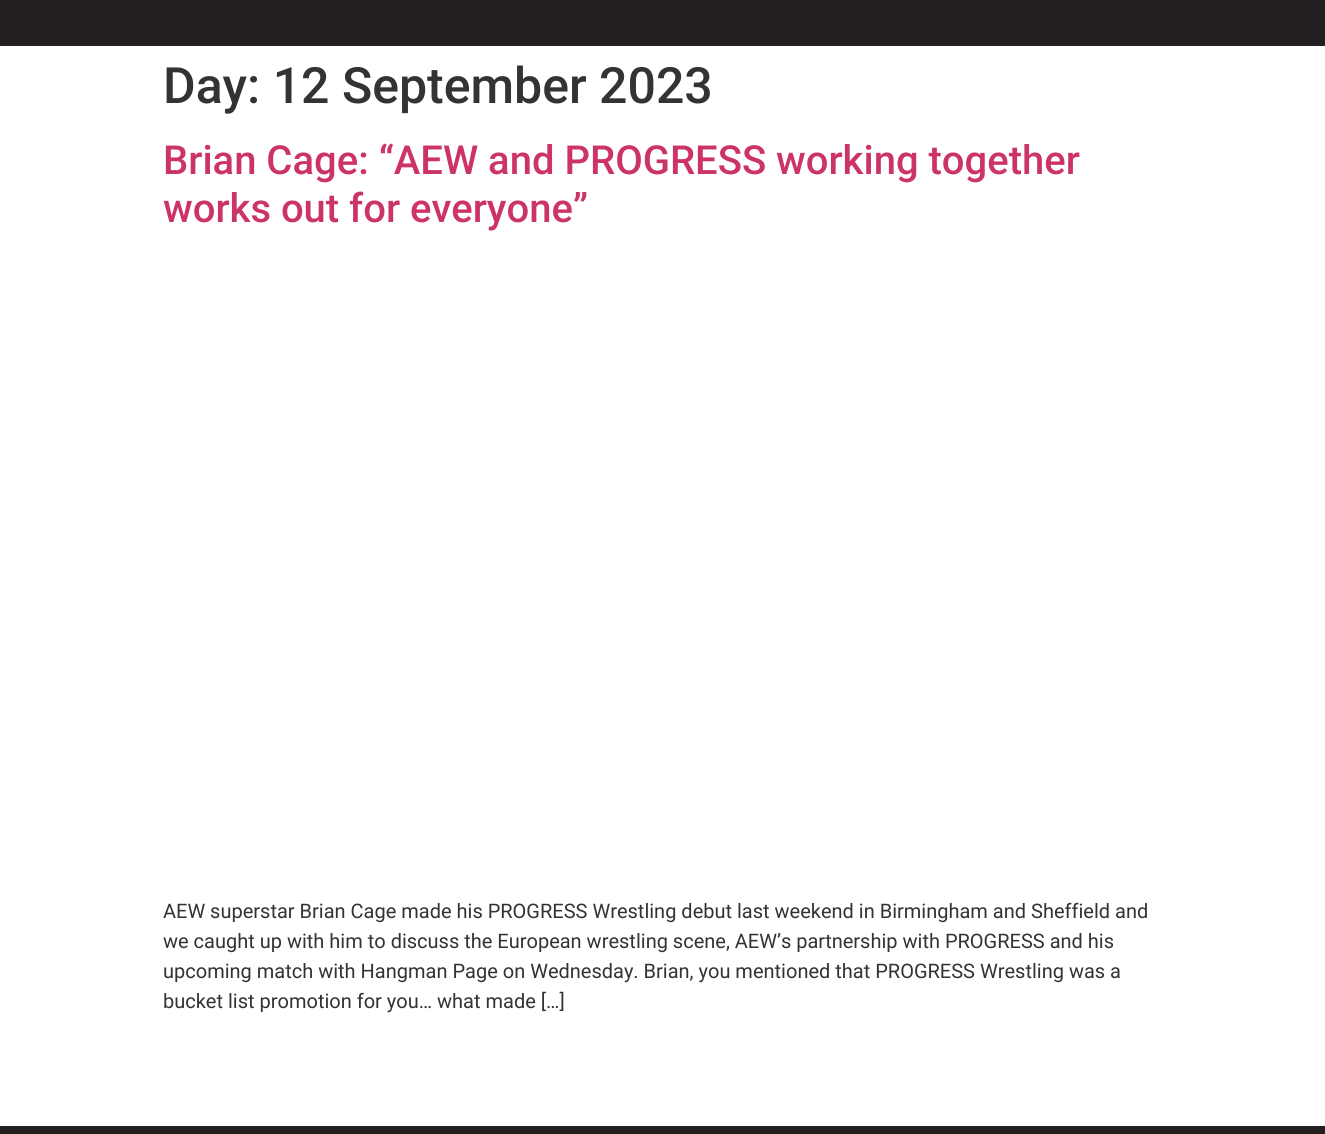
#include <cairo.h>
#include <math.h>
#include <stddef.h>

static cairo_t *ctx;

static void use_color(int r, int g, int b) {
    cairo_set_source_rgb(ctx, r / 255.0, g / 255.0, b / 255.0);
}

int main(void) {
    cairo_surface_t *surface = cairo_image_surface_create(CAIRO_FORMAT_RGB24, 1325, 1134);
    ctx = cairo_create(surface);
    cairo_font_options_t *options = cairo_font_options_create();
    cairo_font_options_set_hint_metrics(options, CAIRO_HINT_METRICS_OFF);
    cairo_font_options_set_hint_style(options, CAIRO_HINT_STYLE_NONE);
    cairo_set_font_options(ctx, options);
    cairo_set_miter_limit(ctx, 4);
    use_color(255, 255, 255);
    cairo_paint(ctx);
    use_color(35, 31, 32);
    cairo_rectangle(ctx, 0, 0, 1325, 46);
    cairo_fill(ctx);
    cairo_select_font_face(ctx, "Roboto Medium", CAIRO_FONT_SLANT_NORMAL, CAIRO_FONT_WEIGHT_NORMAL);
    cairo_set_font_size(ctx, 50);
    use_color(51, 51, 51);
    cairo_move_to(ctx, 163, 103);
    cairo_show_text(ctx, "Day: 12 September 2023");
    cairo_set_font_size(ctx, 40);
    use_color(204, 51, 102);
    cairo_move_to(ctx, 163, 174);
    cairo_show_text(ctx, "Brian Cage: “AEW and PROGRESS working together");
    cairo_move_to(ctx, 163, 222);
    cairo_show_text(ctx, "works out for everyone”");
    cairo_select_font_face(ctx, "Roboto", CAIRO_FONT_SLANT_NORMAL, CAIRO_FONT_WEIGHT_NORMAL);
    cairo_set_font_size(ctx, 20);
    use_color(51, 51, 51);
    cairo_move_to(ctx, 163, 918);
    cairo_show_text(ctx, "AEW superstar Brian Cage made his PROGRESS Wrestling debut last weekend in Birmingham and Sheffield and");
    cairo_move_to(ctx, 163, 948);
    cairo_show_text(ctx, "we caught up with him to discuss the European wrestling scene, AEW’s partnership with PROGRESS and his");
    cairo_move_to(ctx, 163, 978);
    cairo_show_text(ctx, "upcoming match with Hangman Page on Wednesday. Brian, you mentioned that PROGRESS Wrestling was a");
    cairo_move_to(ctx, 163, 1008);
    cairo_show_text(ctx, "bucket list promotion for you… what made […]");
    use_color(35, 31, 32);
    cairo_rectangle(ctx, 0, 1126, 1325, 8);
    cairo_fill(ctx);
    cairo_surface_write_to_png(surface, "result.png");
    cairo_font_options_destroy(options);
    cairo_destroy(ctx);
    cairo_surface_destroy(surface);
    return 0;
}
